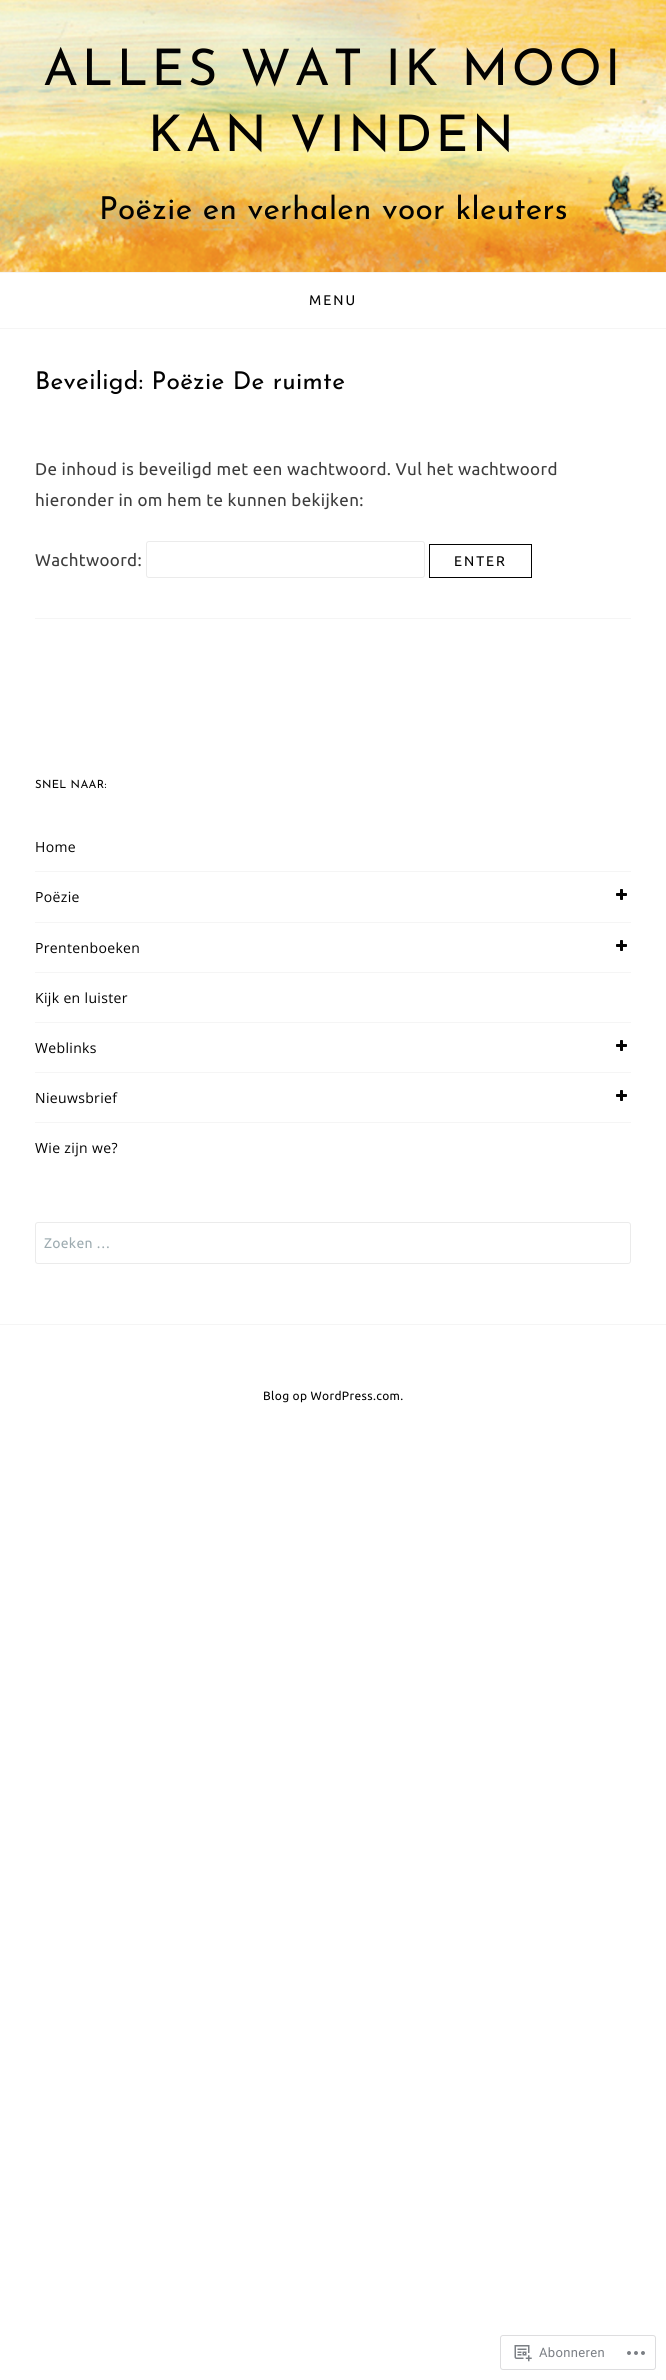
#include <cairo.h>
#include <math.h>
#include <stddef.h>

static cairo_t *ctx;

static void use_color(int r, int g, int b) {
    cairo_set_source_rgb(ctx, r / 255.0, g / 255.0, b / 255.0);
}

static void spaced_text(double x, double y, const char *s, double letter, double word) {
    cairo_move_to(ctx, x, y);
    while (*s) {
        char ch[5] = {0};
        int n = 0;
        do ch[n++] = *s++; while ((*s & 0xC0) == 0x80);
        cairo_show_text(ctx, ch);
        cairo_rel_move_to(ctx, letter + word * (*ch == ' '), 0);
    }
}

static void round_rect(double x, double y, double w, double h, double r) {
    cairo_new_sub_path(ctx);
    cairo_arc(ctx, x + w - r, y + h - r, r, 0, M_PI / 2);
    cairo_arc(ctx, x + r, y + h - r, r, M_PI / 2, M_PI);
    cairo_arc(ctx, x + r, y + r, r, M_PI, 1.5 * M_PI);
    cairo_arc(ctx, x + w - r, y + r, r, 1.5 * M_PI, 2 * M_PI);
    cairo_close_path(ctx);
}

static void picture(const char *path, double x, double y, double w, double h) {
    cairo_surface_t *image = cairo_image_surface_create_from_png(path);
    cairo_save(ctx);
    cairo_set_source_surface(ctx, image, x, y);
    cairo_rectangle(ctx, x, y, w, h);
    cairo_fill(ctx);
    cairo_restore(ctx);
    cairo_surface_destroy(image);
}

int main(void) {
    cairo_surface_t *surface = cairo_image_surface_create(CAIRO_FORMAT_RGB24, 666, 2380);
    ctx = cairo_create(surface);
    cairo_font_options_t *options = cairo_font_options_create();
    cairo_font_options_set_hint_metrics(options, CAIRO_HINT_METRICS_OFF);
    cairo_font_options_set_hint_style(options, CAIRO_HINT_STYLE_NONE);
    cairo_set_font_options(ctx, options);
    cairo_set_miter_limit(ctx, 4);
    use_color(255, 255, 255);
    cairo_paint(ctx);
    picture("img1.png", 0, 0, 666, 272);
    cairo_select_font_face(ctx, "Josefin Sans Thin", CAIRO_FONT_SLANT_NORMAL, CAIRO_FONT_WEIGHT_NORMAL);
    cairo_set_font_size(ctx, 50.4);
    use_color(2, 2, 2);
    spaced_text(43, 85, "ALLES WAT IK MOOI", 3.5, 0);
    spaced_text(148, 151, "KAN VINDEN", 3.5, 0);
    cairo_set_font_size(ctx, 31.5);
    spaced_text(99, 219, "Poëzie en verhalen voor kleuters", 0.35, 0);
    use_color(245, 245, 245);
    cairo_rectangle(ctx, 0, 272, 666, 1);
    cairo_fill(ctx);
    cairo_rectangle(ctx, 0, 328, 666, 1);
    cairo_fill(ctx);
    cairo_select_font_face(ctx, "Ubuntu", CAIRO_FONT_SLANT_NORMAL, CAIRO_FONT_WEIGHT_NORMAL);
    cairo_set_font_size(ctx, 14);
    use_color(2, 2, 2);
    spaced_text(309, 305, "MENU", 2, 0);
    use_color(245, 245, 245);
    cairo_rectangle(ctx, 35, 618, 596, 1);
    cairo_fill(ctx);
    cairo_select_font_face(ctx, "Josefin Sans Thin", CAIRO_FONT_SLANT_NORMAL, CAIRO_FONT_WEIGHT_NORMAL);
    cairo_set_font_size(ctx, 24.5);
    use_color(2, 2, 2);
    spaced_text(35, 389, "Beveiligd: Poëzie De ruimte", 0.35, 0);
    cairo_select_font_face(ctx, "Ubuntu", CAIRO_FONT_SLANT_NORMAL, CAIRO_FONT_WEIGHT_NORMAL);
    cairo_set_font_size(ctx, 17);
    use_color(61, 61, 61);
    spaced_text(35, 475, "De inhoud is beveiligd met een wachtwoord. Vul het wachtwoord", 0.35, 0);
    spaced_text(35, 506, "hieronder in om hem te kunnen bekijken:", 0.35, 0);
    spaced_text(35, 566, "Wachtwoord:", 0.35, 0);
    round_rect(146.5, 541.5, 278, 36, 2.5);
    use_color(235, 235, 235);
    cairo_set_line_width(ctx, 1);
    cairo_stroke(ctx);
    cairo_rectangle(ctx, 429.5, 544.5, 102, 33);
    use_color(2, 2, 2);
    cairo_stroke(ctx);
    cairo_set_font_size(ctx, 14);
    spaced_text(454, 566, "ENTER", 2, 0);
    cairo_select_font_face(ctx, "Josefin Sans Thin", CAIRO_FONT_SLANT_NORMAL, CAIRO_FONT_WEIGHT_NORMAL);
    cairo_set_font_size(ctx, 11.25);
    spaced_text(35, 788, "SNEL NAAR:", 0.35, 0);
    cairo_select_font_face(ctx, "Open Sans", CAIRO_FONT_SLANT_NORMAL, CAIRO_FONT_WEIGHT_NORMAL);
    cairo_set_font_size(ctx, 14);
    spaced_text(35, 852, "Home", 0.35, 0);
    use_color(245, 245, 245);
    cairo_rectangle(ctx, 35, 871, 596, 1);
    cairo_fill(ctx);
    use_color(2, 2, 2);
    spaced_text(35, 902, "Poëzie", 0.35, 0);
    picture("img2.png", 616, 889, 11, 11);
    use_color(245, 245, 245);
    cairo_rectangle(ctx, 35, 922, 596, 1);
    cairo_fill(ctx);
    use_color(2, 2, 2);
    spaced_text(35, 953, "Prentenboeken", 0.35, 0);
    picture("img2.png", 616, 940, 11, 11);
    use_color(245, 245, 245);
    cairo_rectangle(ctx, 35, 972, 596, 1);
    cairo_fill(ctx);
    use_color(2, 2, 2);
    spaced_text(35, 1003, "Kijk en luister", 0.35, 0);
    use_color(245, 245, 245);
    cairo_rectangle(ctx, 35, 1022, 596, 1);
    cairo_fill(ctx);
    use_color(2, 2, 2);
    spaced_text(35, 1053, "Weblinks", 0.35, 0);
    picture("img2.png", 616, 1040, 11, 11);
    use_color(245, 245, 245);
    cairo_rectangle(ctx, 35, 1072, 596, 1);
    cairo_fill(ctx);
    use_color(2, 2, 2);
    spaced_text(35, 1103, "Nieuwsbrief", 0.35, 0);
    picture("img2.png", 616, 1090, 11, 11);
    use_color(245, 245, 245);
    cairo_rectangle(ctx, 35, 1122, 596, 1);
    cairo_fill(ctx);
    use_color(2, 2, 2);
    spaced_text(35, 1153, "Wie zijn we?", 0.35, 0);
    round_rect(35.5, 1222.5, 595, 41, 2.5);
    use_color(235, 235, 235);
    cairo_stroke(ctx);
    cairo_select_font_face(ctx, "Ubuntu", CAIRO_FONT_SLANT_NORMAL, CAIRO_FONT_WEIGHT_NORMAL);
    use_color(157, 171, 176);
    spaced_text(44, 1248, "Zoeken …", 0.25, 0);
    use_color(245, 245, 245);
    cairo_rectangle(ctx, 0, 1324, 666, 1);
    cairo_fill(ctx);
    cairo_set_font_size(ctx, 12);
    use_color(2, 2, 2);
    spaced_text(263, 1400, "Blog op WordPress.com.", 0.35, 0);
    round_rect(500.5, 2335.5, 155, 34, 2.5);
    use_color(221, 221, 223);
    cairo_stroke(ctx);
    picture("img3.png", 514, 2345, 18, 17);
    cairo_select_font_face(ctx, "Roboto", CAIRO_FONT_SLANT_NORMAL, CAIRO_FONT_WEIGHT_NORMAL);
    cairo_set_font_size(ctx, 13);
    use_color(123, 127, 133);
    spaced_text(539, 2357, "Abonneren", 0.35, 0);
    picture("img4.png", 627, 2351, 18, 4);
    cairo_surface_write_to_png(surface, "result.png");
    cairo_font_options_destroy(options);
    cairo_destroy(ctx);
    cairo_surface_destroy(surface);
    return 0;
}
